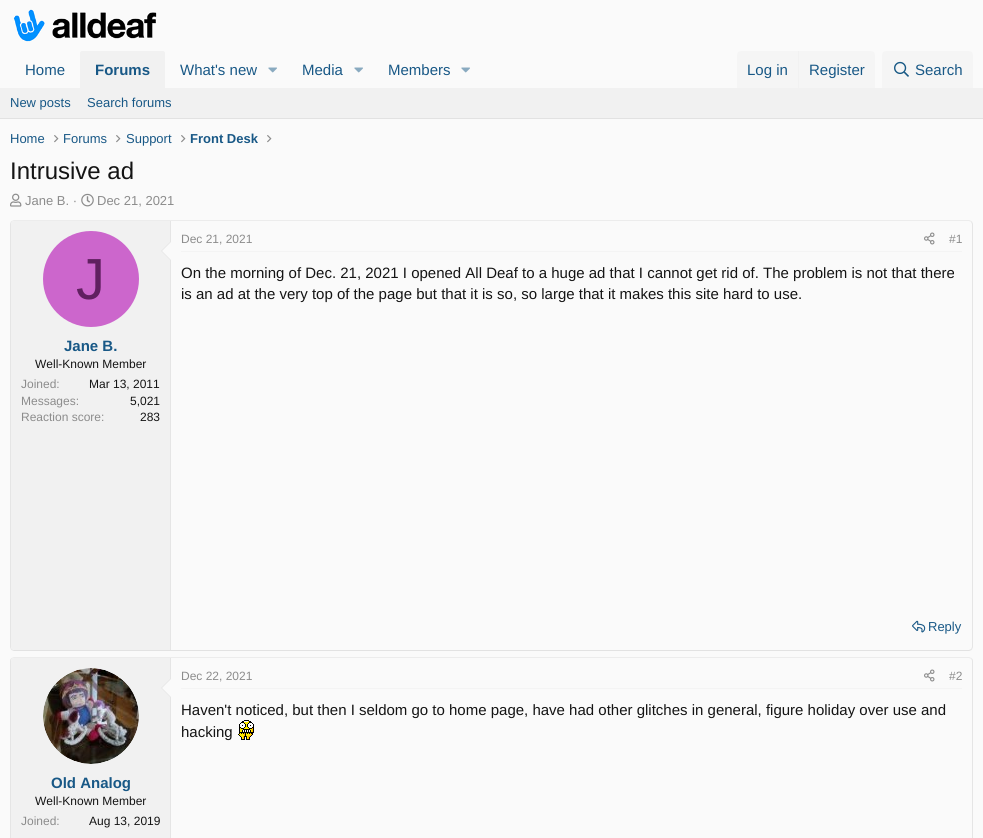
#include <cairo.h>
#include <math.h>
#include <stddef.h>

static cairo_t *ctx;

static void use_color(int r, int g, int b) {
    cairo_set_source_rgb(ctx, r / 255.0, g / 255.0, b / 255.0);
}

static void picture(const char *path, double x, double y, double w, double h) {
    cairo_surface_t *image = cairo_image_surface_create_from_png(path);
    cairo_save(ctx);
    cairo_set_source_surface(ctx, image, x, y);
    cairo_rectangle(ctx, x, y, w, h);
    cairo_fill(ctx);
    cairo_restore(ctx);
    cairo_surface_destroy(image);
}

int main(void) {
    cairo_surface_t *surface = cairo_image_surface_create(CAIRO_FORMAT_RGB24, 983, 838);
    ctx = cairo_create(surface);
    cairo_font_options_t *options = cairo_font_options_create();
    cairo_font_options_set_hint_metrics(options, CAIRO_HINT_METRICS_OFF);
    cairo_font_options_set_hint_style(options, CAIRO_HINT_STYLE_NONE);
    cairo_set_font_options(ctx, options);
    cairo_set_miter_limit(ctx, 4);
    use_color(250, 250, 250);
    cairo_paint(ctx);
    picture("img1.png", 13, 9, 144, 33);
    cairo_select_font_face(ctx, "Liberation Sans", CAIRO_FONT_SLANT_NORMAL, CAIRO_FONT_WEIGHT_NORMAL);
    cairo_set_font_size(ctx, 15);
    use_color(24, 88, 134);
    cairo_move_to(ctx, 25, 75);
    cairo_show_text(ctx, "Home");
    use_color(241, 241, 241);
    cairo_new_path(ctx);
    cairo_move_to(ctx, 82, 51);
    cairo_line_to(ctx, 163, 51);
    cairo_curve_to(ctx, 164, 51, 165, 52, 165, 53);
    cairo_line_to(ctx, 165, 88);
    cairo_line_to(ctx, 80, 88);
    cairo_line_to(ctx, 80, 53);
    cairo_curve_to(ctx, 80, 52, 81, 51, 82, 51);
    cairo_close_path(ctx);
    cairo_fill(ctx);
    cairo_select_font_face(ctx, "Liberation Sans", CAIRO_FONT_SLANT_NORMAL, CAIRO_FONT_WEIGHT_BOLD);
    use_color(24, 88, 134);
    cairo_move_to(ctx, 95, 75);
    cairo_show_text(ctx, "Forums");
    cairo_select_font_face(ctx, "Liberation Sans", CAIRO_FONT_SLANT_NORMAL, CAIRO_FONT_WEIGHT_NORMAL);
    cairo_move_to(ctx, 180, 75);
    cairo_show_text(ctx, "What's new");
    picture("img2.png", 268, 67, 9, 6);
    cairo_move_to(ctx, 302, 75);
    cairo_show_text(ctx, "Media");
    picture("img2.png", 354, 67, 9, 6);
    cairo_move_to(ctx, 388, 75);
    cairo_show_text(ctx, "Members");
    picture("img2.png", 461, 67, 9, 6);
    use_color(245, 245, 245);
    cairo_new_path(ctx);
    cairo_move_to(ctx, 741, 51);
    cairo_line_to(ctx, 871, 51);
    cairo_curve_to(ctx, 873, 51, 875, 53, 875, 55);
    cairo_line_to(ctx, 875, 88);
    cairo_line_to(ctx, 737, 88);
    cairo_line_to(ctx, 737, 55);
    cairo_curve_to(ctx, 737, 53, 739, 51, 741, 51);
    cairo_close_path(ctx);
    cairo_fill(ctx);
    use_color(24, 88, 134);
    cairo_move_to(ctx, 747, 75);
    cairo_show_text(ctx, "Log in");
    use_color(241, 241, 241);
    cairo_rectangle(ctx, 798, 51, 1, 37);
    cairo_fill(ctx);
    use_color(24, 88, 134);
    cairo_move_to(ctx, 809, 75);
    cairo_show_text(ctx, "Register");
    use_color(245, 245, 245);
    cairo_new_path(ctx);
    cairo_move_to(ctx, 886, 51);
    cairo_line_to(ctx, 969, 51);
    cairo_curve_to(ctx, 971, 51, 973, 53, 973, 55);
    cairo_line_to(ctx, 973, 88);
    cairo_line_to(ctx, 882, 88);
    cairo_line_to(ctx, 882, 55);
    cairo_curve_to(ctx, 882, 53, 884, 51, 886, 51);
    cairo_close_path(ctx);
    cairo_fill(ctx);
    picture("img3.png", 894, 61, 15, 16);
    use_color(24, 88, 134);
    cairo_move_to(ctx, 915, 75);
    cairo_show_text(ctx, "Search");
    use_color(241, 241, 241);
    cairo_rectangle(ctx, 0, 88, 983, 30);
    cairo_fill(ctx);
    use_color(226, 226, 226);
    cairo_rectangle(ctx, 0, 118, 983, 1);
    cairo_fill(ctx);
    cairo_set_font_size(ctx, 13);
    use_color(24, 88, 134);
    cairo_move_to(ctx, 10, 107);
    cairo_show_text(ctx, "New posts");
    cairo_move_to(ctx, 87, 107);
    cairo_show_text(ctx, "Search forums");
    cairo_move_to(ctx, 10, 143);
    cairo_show_text(ctx, "Home");
    picture("img4.png", 54, 135, 5, 8);
    cairo_move_to(ctx, 63, 143);
    cairo_show_text(ctx, "Forums");
    picture("img4.png", 116, 135, 5, 8);
    cairo_move_to(ctx, 126, 143);
    cairo_show_text(ctx, "Support");
    picture("img4.png", 181, 135, 5, 8);
    cairo_select_font_face(ctx, "Liberation Sans", CAIRO_FONT_SLANT_NORMAL, CAIRO_FONT_WEIGHT_BOLD);
    cairo_move_to(ctx, 190, 143);
    cairo_show_text(ctx, "Front Desk");
    picture("img4.png", 267, 135, 5, 8);
    cairo_select_font_face(ctx, "Liberation Sans", CAIRO_FONT_SLANT_NORMAL, CAIRO_FONT_WEIGHT_NORMAL);
    cairo_set_font_size(ctx, 24);
    use_color(20, 20, 20);
    cairo_move_to(ctx, 10, 179);
    cairo_show_text(ctx, "Intrusive ad");
    picture("img5.png", 10, 193, 12, 14);
    cairo_set_font_size(ctx, 13);
    use_color(140, 140, 140);
    cairo_move_to(ctx, 25, 205);
    cairo_show_text(ctx, "Jane B. ·");
    picture("img6.png", 81, 193, 13, 14);
    cairo_move_to(ctx, 97, 205);
    cairo_show_text(ctx, "Dec 21, 2021");
    cairo_new_path(ctx);
    cairo_move_to(ctx, 11.5, 221.5);
    cairo_line_to(ctx, 14, 220.5);
    cairo_line_to(ctx, 969, 220.5);
    cairo_line_to(ctx, 971.5, 221.5);
    use_color(236, 236, 236);
    cairo_set_line_width(ctx, 1);
    cairo_stroke(ctx);
    cairo_new_path(ctx);
    cairo_move_to(ctx, 971.5, 221.5);
    cairo_line_to(ctx, 972.5, 224);
    cairo_line_to(ctx, 972.5, 647);
    cairo_line_to(ctx, 971.5, 649.5);
    use_color(229, 229, 229);
    cairo_stroke(ctx);
    cairo_new_path(ctx);
    cairo_move_to(ctx, 971.5, 649.5);
    cairo_line_to(ctx, 969, 650.5);
    cairo_line_to(ctx, 14, 650.5);
    cairo_line_to(ctx, 11.5, 649.5);
    use_color(226, 226, 226);
    cairo_stroke(ctx);
    cairo_new_path(ctx);
    cairo_move_to(ctx, 11.5, 649.5);
    cairo_line_to(ctx, 10.5, 647);
    cairo_line_to(ctx, 10.5, 224);
    cairo_line_to(ctx, 11.5, 221.5);
    use_color(229, 229, 229);
    cairo_stroke(ctx);
    use_color(241, 241, 241);
    cairo_new_path(ctx);
    cairo_move_to(ctx, 14, 221);
    cairo_line_to(ctx, 171, 221);
    cairo_line_to(ctx, 171, 650);
    cairo_line_to(ctx, 14, 650);
    cairo_curve_to(ctx, 12.5, 650, 11, 648.5, 11, 647);
    cairo_line_to(ctx, 11, 224);
    cairo_curve_to(ctx, 11, 222.5, 12.5, 221, 14, 221);
    cairo_close_path(ctx);
    cairo_fill(ctx);
    use_color(229, 229, 229);
    cairo_rectangle(ctx, 170, 221, 1, 429);
    cairo_fill(ctx);
    cairo_new_path(ctx);
    cairo_move_to(ctx, 171, 241);
    cairo_line_to(ctx, 171, 261);
    cairo_line_to(ctx, 161, 251);
    cairo_close_path(ctx);
    cairo_fill(ctx);
    use_color(250, 250, 250);
    cairo_new_path(ctx);
    cairo_move_to(ctx, 171, 242);
    cairo_line_to(ctx, 171, 260);
    cairo_line_to(ctx, 162, 251);
    cairo_close_path(ctx);
    cairo_fill(ctx);
    use_color(204, 102, 204);
    cairo_arc(ctx, 91, 279, 48, 0, 2 * M_PI);
    cairo_fill(ctx);
    cairo_set_font_size(ctx, 58);
    use_color(96, 32, 96);
    cairo_move_to(ctx, 76, 299);
    cairo_show_text(ctx, "J");
    cairo_select_font_face(ctx, "Liberation Sans", CAIRO_FONT_SLANT_NORMAL, CAIRO_FONT_WEIGHT_BOLD);
    cairo_set_font_size(ctx, 15);
    use_color(24, 88, 134);
    cairo_move_to(ctx, 64, 351);
    cairo_show_text(ctx, "Jane B.");
    cairo_select_font_face(ctx, "Liberation Sans", CAIRO_FONT_SLANT_NORMAL, CAIRO_FONT_WEIGHT_NORMAL);
    cairo_set_font_size(ctx, 12);
    use_color(20, 20, 20);
    cairo_move_to(ctx, 35, 368);
    cairo_show_text(ctx, "Well-Known Member");
    use_color(140, 140, 140);
    cairo_move_to(ctx, 21, 388);
    cairo_show_text(ctx, "Joined:");
    use_color(20, 20, 20);
    cairo_move_to(ctx, 89, 388);
    cairo_show_text(ctx, "Mar 13, 2011");
    use_color(140, 140, 140);
    cairo_move_to(ctx, 21, 405);
    cairo_show_text(ctx, "Messages:");
    use_color(20, 20, 20);
    cairo_move_to(ctx, 130, 405);
    cairo_show_text(ctx, "5,021");
    use_color(140, 140, 140);
    cairo_move_to(ctx, 21, 421);
    cairo_show_text(ctx, "Reaction score:");
    use_color(20, 20, 20);
    cairo_move_to(ctx, 140, 421);
    cairo_show_text(ctx, "283");
    use_color(244, 244, 244);
    cairo_rectangle(ctx, 181, 251, 781, 1);
    cairo_fill(ctx);
    use_color(140, 140, 140);
    cairo_move_to(ctx, 181, 243);
    cairo_show_text(ctx, "Dec 21, 2021");
    picture("img7.png", 924, 232, 11, 13);
    cairo_move_to(ctx, 949, 243);
    cairo_show_text(ctx, "#1");
    cairo_set_font_size(ctx, 15);
    use_color(20, 20, 20);
    cairo_move_to(ctx, 181, 278);
    cairo_show_text(ctx, "On the morning of Dec. 21, 2021 I opened All Deaf to a huge ad that I cannot get rid of. The problem is not that there");
    cairo_move_to(ctx, 181, 299);
    cairo_show_text(ctx, "is an ad at the very top of the page but that it is so, so large that it makes this site hard to use.");
    picture("img8.png", 912, 620, 14, 13);
    cairo_set_font_size(ctx, 13);
    use_color(24, 88, 134);
    cairo_move_to(ctx, 928, 631);
    cairo_show_text(ctx, "Reply");
    cairo_new_path(ctx);
    cairo_move_to(ctx, 11.5, 658.5);
    cairo_line_to(ctx, 14, 657.5);
    cairo_line_to(ctx, 969, 657.5);
    cairo_line_to(ctx, 971.5, 658.5);
    use_color(236, 236, 236);
    cairo_stroke(ctx);
    cairo_new_path(ctx);
    cairo_move_to(ctx, 971.5, 658.5);
    cairo_curve_to(ctx, 972, 659, 972.5, 660, 972.5, 661);
    cairo_line_to(ctx, 972.5, 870);
    cairo_curve_to(ctx, 972.5, 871, 972, 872, 971.5, 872.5);
    use_color(229, 229, 229);
    cairo_stroke(ctx);
    cairo_new_path(ctx);
    cairo_move_to(ctx, 11.5, 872.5);
    cairo_curve_to(ctx, 11, 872, 10.5, 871, 10.5, 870);
    cairo_line_to(ctx, 10.5, 661);
    cairo_curve_to(ctx, 10.5, 660, 11, 659, 11.5, 658.5);
    cairo_stroke(ctx);
    use_color(244, 244, 244);
    cairo_rectangle(ctx, 181, 688, 781, 1);
    cairo_fill(ctx);
    cairo_set_font_size(ctx, 12);
    use_color(140, 140, 140);
    cairo_move_to(ctx, 181, 680);
    cairo_show_text(ctx, "Dec 22, 2021");
    picture("img7.png", 924, 669, 11, 13);
    cairo_move_to(ctx, 949, 680);
    cairo_show_text(ctx, "#2");
    cairo_set_font_size(ctx, 15);
    use_color(20, 20, 20);
    cairo_move_to(ctx, 181, 715);
    cairo_show_text(ctx, "Haven't noticed, but then I seldom go to home page, have had other glitches in general, figure holiday over use and");
    cairo_move_to(ctx, 181, 737);
    cairo_show_text(ctx, "hacking");
    picture("img9.png", 238, 720, 16, 20);
    use_color(241, 241, 241);
    cairo_new_path(ctx);
    cairo_move_to(ctx, 14, 658);
    cairo_line_to(ctx, 171, 658);
    cairo_line_to(ctx, 171, 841);
    cairo_line_to(ctx, 14, 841);
    cairo_curve_to(ctx, 12.5, 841, 11, 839.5, 11, 838);
    cairo_line_to(ctx, 11, 661);
    cairo_curve_to(ctx, 11, 659.5, 12.5, 658, 14, 658);
    cairo_close_path(ctx);
    cairo_fill(ctx);
    use_color(229, 229, 229);
    cairo_rectangle(ctx, 170, 658, 1, 180);
    cairo_fill(ctx);
    use_color(250, 250, 250);
    cairo_arc(ctx, 91, 716, 48, 0, 2 * M_PI);
    cairo_fill(ctx);
    picture("img10.png", 43, 668, 96, 96);
    use_color(229, 229, 229);
    cairo_new_path(ctx);
    cairo_move_to(ctx, 171, 678);
    cairo_line_to(ctx, 171, 698);
    cairo_line_to(ctx, 161, 688);
    cairo_close_path(ctx);
    cairo_fill(ctx);
    use_color(250, 250, 250);
    cairo_new_path(ctx);
    cairo_move_to(ctx, 171, 679);
    cairo_line_to(ctx, 171, 697);
    cairo_line_to(ctx, 162, 688);
    cairo_close_path(ctx);
    cairo_fill(ctx);
    cairo_select_font_face(ctx, "Liberation Sans", CAIRO_FONT_SLANT_NORMAL, CAIRO_FONT_WEIGHT_BOLD);
    use_color(24, 88, 134);
    cairo_move_to(ctx, 51, 788);
    cairo_show_text(ctx, "Old Analog");
    cairo_select_font_face(ctx, "Liberation Sans", CAIRO_FONT_SLANT_NORMAL, CAIRO_FONT_WEIGHT_NORMAL);
    cairo_set_font_size(ctx, 12);
    use_color(20, 20, 20);
    cairo_move_to(ctx, 35, 805);
    cairo_show_text(ctx, "Well-Known Member");
    use_color(140, 140, 140);
    cairo_move_to(ctx, 21, 825);
    cairo_show_text(ctx, "Joined:");
    use_color(20, 20, 20);
    cairo_move_to(ctx, 89, 825);
    cairo_show_text(ctx, "Aug 13, 2019");
    cairo_surface_write_to_png(surface, "result.png");
    cairo_font_options_destroy(options);
    cairo_destroy(ctx);
    cairo_surface_destroy(surface);
    return 0;
}
